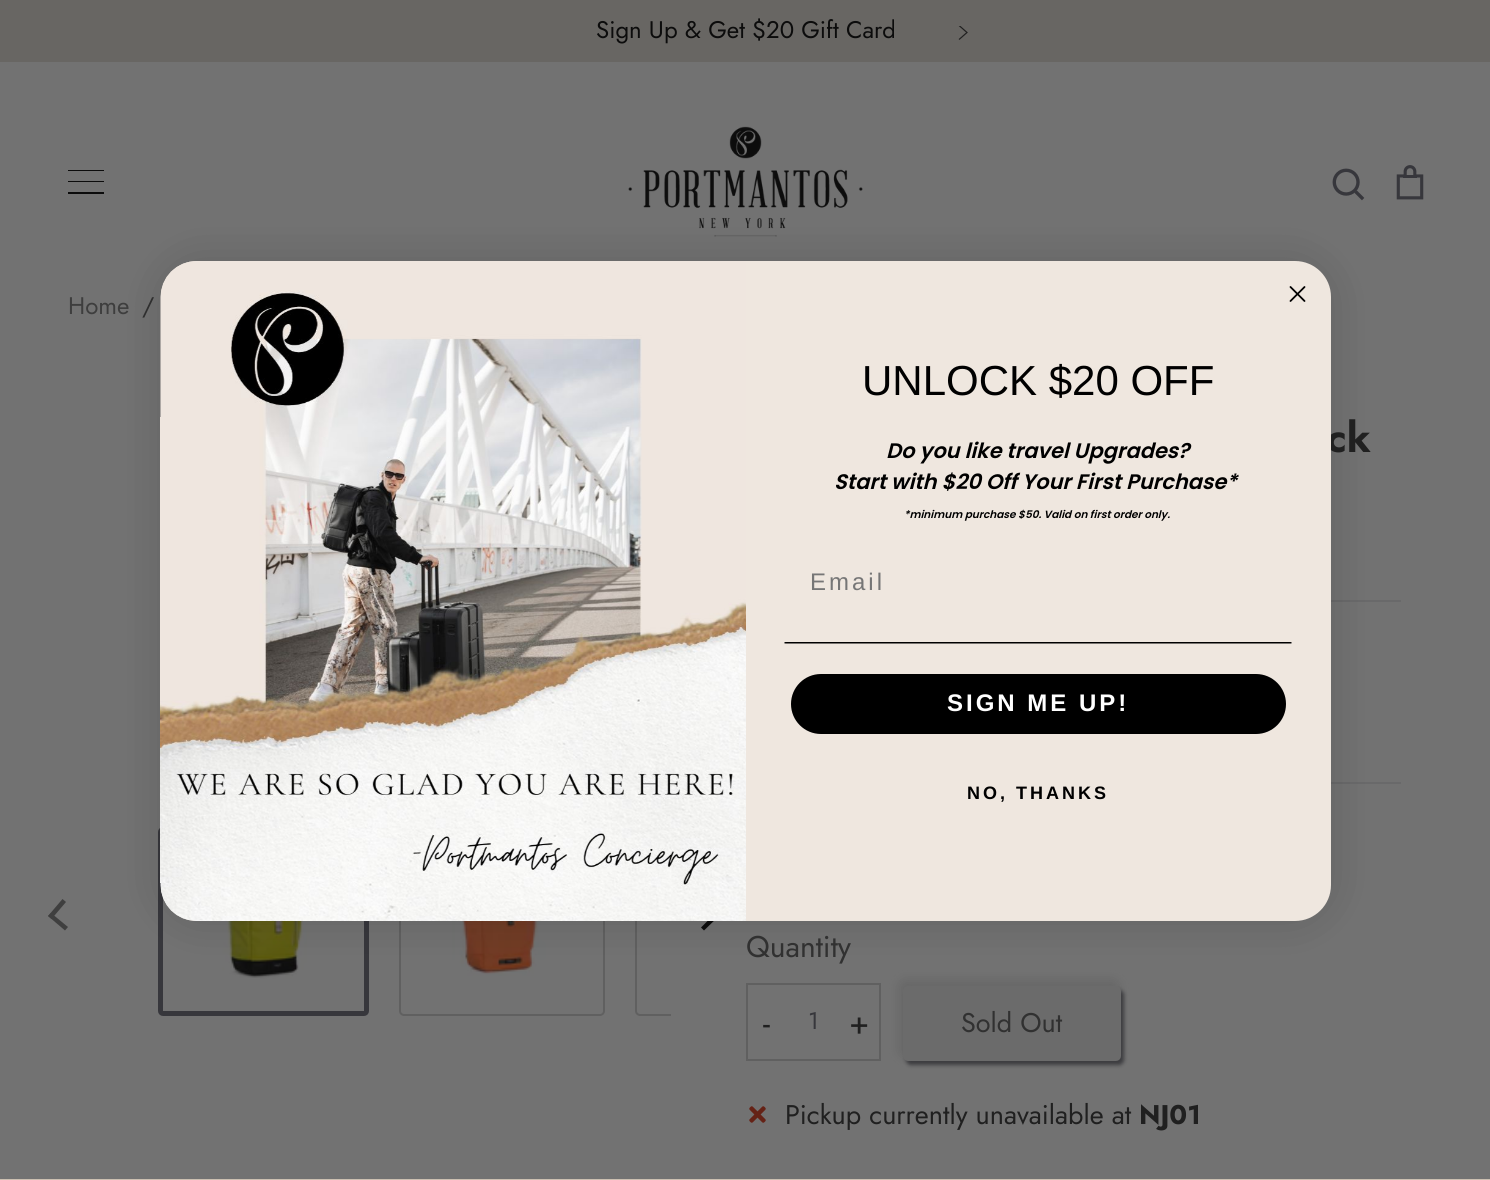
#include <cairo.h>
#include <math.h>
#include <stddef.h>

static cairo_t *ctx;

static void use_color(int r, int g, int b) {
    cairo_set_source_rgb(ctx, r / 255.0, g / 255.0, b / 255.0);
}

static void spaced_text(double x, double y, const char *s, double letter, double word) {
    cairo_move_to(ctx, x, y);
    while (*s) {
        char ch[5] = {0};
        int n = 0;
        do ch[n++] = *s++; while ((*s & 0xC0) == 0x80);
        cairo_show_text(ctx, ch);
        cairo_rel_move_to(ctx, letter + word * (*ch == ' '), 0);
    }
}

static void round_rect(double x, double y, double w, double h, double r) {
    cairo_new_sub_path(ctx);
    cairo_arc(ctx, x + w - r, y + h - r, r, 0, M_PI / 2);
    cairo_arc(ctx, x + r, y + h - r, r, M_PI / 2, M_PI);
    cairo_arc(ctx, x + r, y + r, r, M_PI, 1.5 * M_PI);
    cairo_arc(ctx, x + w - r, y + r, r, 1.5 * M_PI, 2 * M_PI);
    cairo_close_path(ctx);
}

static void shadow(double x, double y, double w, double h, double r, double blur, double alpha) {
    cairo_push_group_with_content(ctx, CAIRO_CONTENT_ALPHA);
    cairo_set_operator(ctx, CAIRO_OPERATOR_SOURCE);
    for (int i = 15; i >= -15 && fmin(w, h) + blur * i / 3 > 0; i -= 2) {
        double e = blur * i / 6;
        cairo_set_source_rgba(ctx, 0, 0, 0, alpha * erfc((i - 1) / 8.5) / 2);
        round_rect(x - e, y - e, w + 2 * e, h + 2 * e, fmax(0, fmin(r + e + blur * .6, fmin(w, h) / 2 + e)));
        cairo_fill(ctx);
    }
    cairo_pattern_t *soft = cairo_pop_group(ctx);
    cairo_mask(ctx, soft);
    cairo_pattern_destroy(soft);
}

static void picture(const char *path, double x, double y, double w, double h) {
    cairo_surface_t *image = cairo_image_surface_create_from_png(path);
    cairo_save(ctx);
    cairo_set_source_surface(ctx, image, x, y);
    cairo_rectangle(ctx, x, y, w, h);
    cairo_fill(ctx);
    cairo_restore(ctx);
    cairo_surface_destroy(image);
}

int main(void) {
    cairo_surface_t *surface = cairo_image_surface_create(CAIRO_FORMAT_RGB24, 1490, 1180);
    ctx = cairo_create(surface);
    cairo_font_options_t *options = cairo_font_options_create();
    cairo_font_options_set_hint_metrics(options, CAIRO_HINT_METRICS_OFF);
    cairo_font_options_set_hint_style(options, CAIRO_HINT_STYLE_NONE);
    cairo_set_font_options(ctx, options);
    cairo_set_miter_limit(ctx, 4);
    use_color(114, 114, 114);
    cairo_paint(ctx);
    use_color(104, 102, 99);
    cairo_rectangle(ctx, 0, 0, 1490, 62);
    cairo_fill(ctx);
    cairo_select_font_face(ctx, "Jost", CAIRO_FONT_SLANT_NORMAL, CAIRO_FONT_WEIGHT_NORMAL);
    cairo_set_font_size(ctx, 24);
    use_color(12, 12, 12);
    cairo_move_to(ctx, 596, 38);
    cairo_show_text(ctx, "Sign Up & Get $20 Gift Card");
    cairo_save(ctx);
    cairo_rectangle(ctx, 956, 26, 15, 15);
    cairo_clip(ctx);
    cairo_new_path(ctx);
    cairo_move_to(ctx, 959, 39.5);
    cairo_line_to(ctx, 967, 32.5);
    cairo_line_to(ctx, 959, 25.5);
    use_color(32, 32, 32);
    cairo_set_line_width(ctx, 1.2);
    cairo_stroke(ctx);
    cairo_restore(ctx);
    cairo_rectangle(ctx, 68, 170, 36, 1);
    cairo_fill(ctx);
    cairo_rectangle(ctx, 68, 181, 36, 1);
    cairo_fill(ctx);
    cairo_rectangle(ctx, 68, 192, 36, 2);
    cairo_fill(ctx);
    picture("img1.png", 628, 126, 235, 111);
    picture("img2.png", 1332, 168, 33, 33);
    picture("img3.png", 1396, 165, 28, 35);
    use_color(204, 192, 177);
    cairo_rectangle(ctx, 0, 1179, 1490, 1);
    cairo_fill(ctx);
    use_color(62, 62, 62);
    cairo_move_to(ctx, 68, 314);
    cairo_show_text(ctx, "Home");
    use_color(49, 49, 49);
    cairo_move_to(ctx, 142, 314);
    cairo_show_text(ctx, "/");
    round_rect(160.5, 829.5, 206, 184, 2.5);
    use_color(55, 55, 60);
    cairo_set_line_width(ctx, 5);
    cairo_stroke(ctx);
    picture("img6.png", 222, 921, 88, 58);
    round_rect(400, 828, 204, 187, 4);
    use_color(96, 96, 96);
    cairo_set_line_width(ctx, 2);
    cairo_stroke(ctx);
    picture("img7.png", 452, 921, 97, 55);
    cairo_save(ctx);
    cairo_rectangle(ctx, 98, 812, 573, 219);
    cairo_clip(ctx);
    round_rect(636, 828, 203, 187, 4);
    cairo_stroke(ctx);
    cairo_restore(ctx);
    use_color(12, 12, 12);
    cairo_new_path(ctx);
    cairo_move_to(ctx, 701, 927.5);
    cairo_line_to(ctx, 717, 911.5);
    cairo_line_to(ctx, 720, 915);
    cairo_line_to(ctx, 704, 930.5);
    cairo_close_path(ctx);
    cairo_fill(ctx);
    use_color(105, 105, 106);
    cairo_rectangle(ctx, 1331, 600, 70, 2);
    cairo_fill(ctx);
    cairo_rectangle(ctx, 1331, 782, 70, 2);
    cairo_fill(ctx);
    cairo_rectangle(ctx, 747, 984, 133, 76);
    use_color(96, 96, 96);
    cairo_stroke(ctx);
    use_color(101, 101, 101);
    shadow(900, 981, 218, 75, 5, 6, 1);
    use_color(60, 60, 63);
    shadow(906, 990, 218, 75, 5, 2, 1);
    use_color(107, 107, 107);
    round_rect(904.5, 987.5, 215, 72, 3.5);
    cairo_fill_preserve(ctx);
    cairo_set_line_width(ctx, 3);
    cairo_stroke(ctx);
    use_color(0, 0, 0);
    shadow(161, 261, 1170, 660, 36, 22.5, 0.15);
    cairo_select_font_face(ctx, "Jost", CAIRO_FONT_SLANT_NORMAL, CAIRO_FONT_WEIGHT_BOLD);
    cairo_set_font_size(ctx, 42);
    use_color(32, 32, 32);
    cairo_move_to(ctx, 1326, 452);
    cairo_show_text(ctx, "ck");
    use_color(239, 231, 223);
    round_rect(161, 261, 1170, 660, 36);
    cairo_fill(ctx);
    cairo_new_path(ctx);
    cairo_move_to(ctx, 1290.5, 287);
    cairo_line_to(ctx, 1304.5, 301);
    cairo_move_to(ctx, 1290.5, 301);
    cairo_line_to(ctx, 1304.5, 287);
    cairo_close_path(ctx);
    use_color(0, 0, 0);
    cairo_set_line_width(ctx, 1.8);
    cairo_set_line_cap(ctx, CAIRO_LINE_CAP_ROUND);
    cairo_set_line_join(ctx, CAIRO_LINE_JOIN_ROUND);
    cairo_stroke(ctx);
    picture("img4.png", 160, 261, 586, 660);
    cairo_select_font_face(ctx, "Liberation Sans", CAIRO_FONT_SLANT_NORMAL, CAIRO_FONT_WEIGHT_NORMAL);
    cairo_move_to(ctx, 862, 395);
    cairo_show_text(ctx, "UNLOCK $20 OFF");
    cairo_select_font_face(ctx, "Poppins SemiBold", CAIRO_FONT_SLANT_ITALIC, CAIRO_FONT_WEIGHT_NORMAL);
    cairo_set_font_size(ctx, 21);
    cairo_move_to(ctx, 886, 458);
    cairo_show_text(ctx, "Do you like travel Upgrades?");
    cairo_move_to(ctx, 834, 489);
    cairo_show_text(ctx, "Start with $20 Off Your First Purchase*");
    cairo_set_font_size(ctx, 10.5);
    cairo_move_to(ctx, 904, 518);
    cairo_show_text(ctx, "*minimum purchase $50. Valid on first order only.");
    cairo_select_font_face(ctx, "Liberation Sans", CAIRO_FONT_SLANT_NORMAL, CAIRO_FONT_WEIGHT_NORMAL);
    cairo_set_font_size(ctx, 24);
    use_color(118, 118, 118);
    spaced_text(810, 590, "Email", 3, 0);
    picture("img5.png", 784, 642, 508, 2);
    use_color(0, 0, 0);
    round_rect(791, 674, 495, 60, 30);
    cairo_fill(ctx);
    cairo_select_font_face(ctx, "Liberation Sans", CAIRO_FONT_SLANT_NORMAL, CAIRO_FONT_WEIGHT_BOLD);
    use_color(255, 255, 255);
    spaced_text(947, 711, "SIGN ME UP!", 3, 0);
    cairo_set_font_size(ctx, 18);
    use_color(0, 0, 0);
    spaced_text(967, 799, "NO, THANKS", 3, 0);
    use_color(63, 63, 63);
    cairo_new_path(ctx);
    cairo_move_to(ctx, 68, 927);
    cairo_line_to(ctx, 65, 930.5);
    cairo_line_to(ctx, 48, 916);
    cairo_line_to(ctx, 51, 913);
    cairo_close_path(ctx);
    cairo_fill(ctx);
    cairo_new_path(ctx);
    cairo_move_to(ctx, 66, 902);
    cairo_line_to(ctx, 51.5, 919);
    cairo_line_to(ctx, 48, 916);
    cairo_line_to(ctx, 62.5, 899);
    cairo_close_path(ctx);
    cairo_fill(ctx);
    cairo_select_font_face(ctx, "Jost", CAIRO_FONT_SLANT_NORMAL, CAIRO_FONT_WEIGHT_NORMAL);
    cairo_set_font_size(ctx, 30);
    use_color(49, 49, 49);
    cairo_move_to(ctx, 746, 957);
    cairo_show_text(ctx, "Quantity");
    cairo_set_font_size(ctx, 33);
    use_color(32, 32, 32);
    cairo_move_to(ctx, 763, 1034);
    cairo_show_text(ctx, "-");
    cairo_set_font_size(ctx, 24);
    use_color(55, 55, 60);
    cairo_move_to(ctx, 808, 1029);
    cairo_show_text(ctx, "1");
    cairo_set_font_size(ctx, 33);
    use_color(32, 32, 32);
    cairo_move_to(ctx, 849, 1034);
    cairo_show_text(ctx, "+");
    cairo_set_font_size(ctx, 27);
    use_color(49, 49, 49);
    cairo_move_to(ctx, 961, 1032);
    cairo_show_text(ctx, "Sold Out");
    picture("img8.png", 749, 1106, 17, 17);
    use_color(32, 32, 32);
    cairo_move_to(ctx, 785, 1124);
    cairo_show_text(ctx, "Pickup currently unavailable at");
    cairo_select_font_face(ctx, "Jost", CAIRO_FONT_SLANT_NORMAL, CAIRO_FONT_WEIGHT_BOLD);
    cairo_move_to(ctx, 1139, 1124);
    cairo_show_text(ctx, "NJ01");
    cairo_surface_write_to_png(surface, "result.png");
    cairo_font_options_destroy(options);
    cairo_destroy(ctx);
    cairo_surface_destroy(surface);
    return 0;
}
